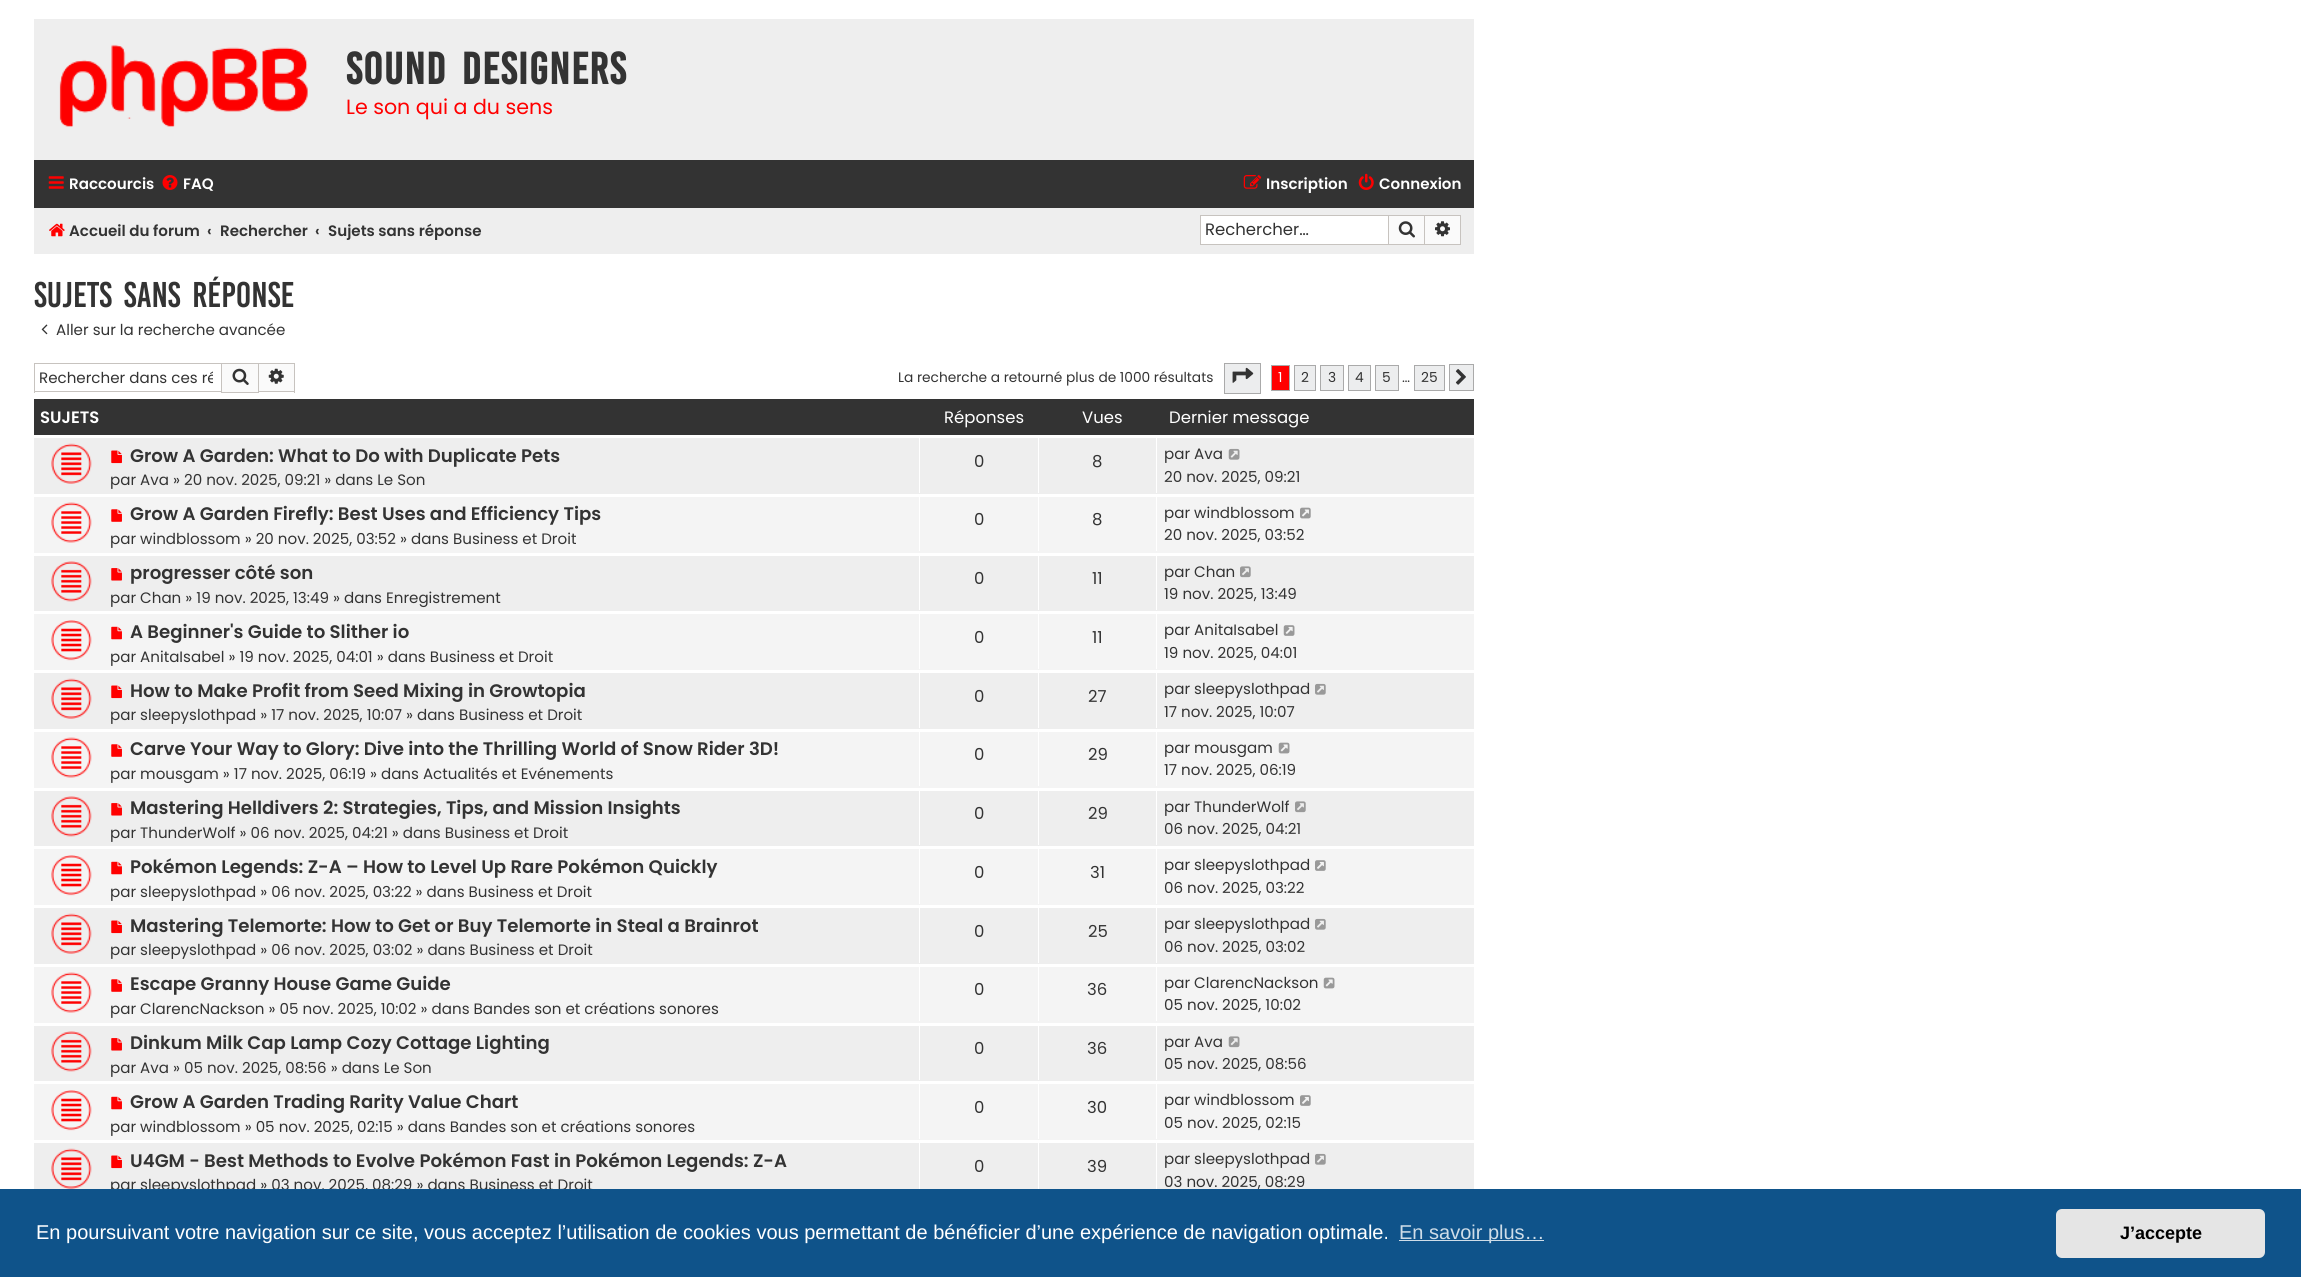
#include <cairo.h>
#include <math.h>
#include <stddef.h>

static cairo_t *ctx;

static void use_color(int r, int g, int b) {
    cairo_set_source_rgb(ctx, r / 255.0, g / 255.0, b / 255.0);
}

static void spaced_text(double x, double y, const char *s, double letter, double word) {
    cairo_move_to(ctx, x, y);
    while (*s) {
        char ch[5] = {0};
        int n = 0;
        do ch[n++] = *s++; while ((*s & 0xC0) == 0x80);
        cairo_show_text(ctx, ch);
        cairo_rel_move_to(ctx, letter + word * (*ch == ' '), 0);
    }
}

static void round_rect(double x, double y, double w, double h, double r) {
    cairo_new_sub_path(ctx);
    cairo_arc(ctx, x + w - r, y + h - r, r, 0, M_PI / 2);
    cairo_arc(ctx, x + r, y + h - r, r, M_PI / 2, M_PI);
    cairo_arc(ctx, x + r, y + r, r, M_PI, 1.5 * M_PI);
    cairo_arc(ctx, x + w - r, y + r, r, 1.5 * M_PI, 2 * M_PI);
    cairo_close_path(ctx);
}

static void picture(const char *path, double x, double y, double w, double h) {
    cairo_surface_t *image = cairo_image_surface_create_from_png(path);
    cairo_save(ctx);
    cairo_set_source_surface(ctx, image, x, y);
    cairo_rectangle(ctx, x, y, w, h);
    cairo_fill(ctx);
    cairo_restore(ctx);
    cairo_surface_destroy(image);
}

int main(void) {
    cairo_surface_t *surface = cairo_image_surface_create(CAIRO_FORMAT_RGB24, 2301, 1277);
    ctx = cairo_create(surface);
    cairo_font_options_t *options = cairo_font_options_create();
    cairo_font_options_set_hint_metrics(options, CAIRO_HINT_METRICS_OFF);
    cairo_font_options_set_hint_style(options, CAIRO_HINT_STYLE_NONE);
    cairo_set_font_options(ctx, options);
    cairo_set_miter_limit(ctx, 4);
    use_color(255, 255, 255);
    cairo_paint(ctx);
    use_color(238, 238, 238);
    cairo_rectangle(ctx, 34, 19, 1440, 141);
    cairo_fill(ctx);
    picture("img1.png", 59, 44, 249, 83);
    cairo_select_font_face(ctx, "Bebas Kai", CAIRO_FONT_SLANT_NORMAL, CAIRO_FONT_WEIGHT_BOLD);
    cairo_set_font_size(ctx, 34.5);
    use_color(51, 51, 51);
    spaced_text(346, 84, "Sound Designers", 1.25, 5);
    cairo_select_font_face(ctx, "Poppins", CAIRO_FONT_SLANT_NORMAL, CAIRO_FONT_WEIGHT_NORMAL);
    cairo_set_font_size(ctx, 20.6);
    use_color(255, 0, 0);
    cairo_move_to(ctx, 346, 114);
    cairo_show_text(ctx, "Le son qui a du sens");
    use_color(51, 51, 51);
    cairo_rectangle(ctx, 34, 160, 1440, 48);
    cairo_fill(ctx);
    picture("img2.png", 48, 176, 16, 13);
    cairo_select_font_face(ctx, "Poppins SemiBold", CAIRO_FONT_SLANT_NORMAL, CAIRO_FONT_WEIGHT_NORMAL);
    cairo_set_font_size(ctx, 15.1);
    use_color(255, 255, 255);
    cairo_move_to(ctx, 69, 189);
    cairo_show_text(ctx, "Raccourcis");
    picture("img3.png", 162, 175, 16, 15);
    cairo_move_to(ctx, 183, 189);
    cairo_show_text(ctx, "FAQ");
    picture("img4.png", 1243, 175, 19, 14);
    cairo_move_to(ctx, 1266, 189);
    cairo_show_text(ctx, "Inscription");
    picture("img5.png", 1358, 173, 16, 17);
    cairo_move_to(ctx, 1379, 189);
    cairo_show_text(ctx, "Connexion");
    use_color(238, 238, 238);
    cairo_rectangle(ctx, 34, 208, 1440, 46);
    cairo_fill(ctx);
    picture("img6.png", 49, 223, 16, 14);
    use_color(51, 51, 51);
    cairo_move_to(ctx, 69, 236);
    cairo_show_text(ctx, "Accueil du forum");
    cairo_move_to(ctx, 207, 236);
    cairo_show_text(ctx, "‹");
    cairo_move_to(ctx, 220, 236);
    cairo_show_text(ctx, "Rechercher");
    cairo_move_to(ctx, 315, 236);
    cairo_show_text(ctx, "‹");
    cairo_move_to(ctx, 328, 236);
    cairo_show_text(ctx, "Sujets sans réponse");
    use_color(255, 255, 255);
    cairo_rectangle(ctx, 1201, 216, 187, 28);
    cairo_fill(ctx);
    use_color(199, 195, 191);
    cairo_rectangle(ctx, 1200, 215, 188, 1);
    cairo_fill(ctx);
    cairo_rectangle(ctx, 1200, 244, 188, 1);
    cairo_fill(ctx);
    cairo_rectangle(ctx, 1200, 215, 1, 30);
    cairo_fill(ctx);
    cairo_select_font_face(ctx, "Poppins", CAIRO_FONT_SLANT_NORMAL, CAIRO_FONT_WEIGHT_NORMAL);
    cairo_set_font_size(ctx, 16.5);
    use_color(51, 51, 51);
    cairo_move_to(ctx, 1205, 235);
    cairo_show_text(ctx, "Rechercher…");
    use_color(250, 250, 250);
    cairo_rectangle(ctx, 1388.5, 215.5, 36, 29);
    cairo_fill_preserve(ctx);
    use_color(199, 195, 191);
    cairo_set_line_width(ctx, 1);
    cairo_stroke(ctx);
    picture("img7.png", 1398, 221, 17, 17);
    use_color(250, 250, 250);
    cairo_rectangle(ctx, 1425, 216, 35, 28);
    cairo_fill(ctx);
    use_color(199, 195, 191);
    cairo_rectangle(ctx, 1425, 215, 36, 1);
    cairo_fill(ctx);
    cairo_rectangle(ctx, 1460, 215, 1, 30);
    cairo_fill(ctx);
    cairo_rectangle(ctx, 1425, 244, 36, 1);
    cairo_fill(ctx);
    picture("img8.png", 1435, 221, 15, 16);
    cairo_select_font_face(ctx, "Bebas Kai", CAIRO_FONT_SLANT_NORMAL, CAIRO_FONT_WEIGHT_NORMAL);
    cairo_set_font_size(ctx, 27.5);
    use_color(51, 51, 51);
    spaced_text(34, 307, "Sujets sans réponse", 0, 5);
    picture("img9.png", 41, 324, 7, 11);
    cairo_select_font_face(ctx, "Poppins", CAIRO_FONT_SLANT_NORMAL, CAIRO_FONT_WEIGHT_NORMAL);
    cairo_set_font_size(ctx, 15.1);
    cairo_move_to(ctx, 56, 335);
    cairo_show_text(ctx, "Aller sur la recherche avancée");
    use_color(199, 195, 191);
    cairo_rectangle(ctx, 34, 363, 187, 1);
    cairo_fill(ctx);
    cairo_rectangle(ctx, 34, 391, 187, 1);
    cairo_fill(ctx);
    cairo_rectangle(ctx, 34, 363, 1, 30);
    cairo_fill(ctx);
    cairo_save(ctx);
    cairo_rectangle(ctx, 39, 366, 174, 23);
    cairo_clip(ctx);
    use_color(51, 51, 51);
    cairo_move_to(ctx, 39, 383);
    cairo_show_text(ctx, "Rechercher dans ces ré");
    cairo_restore(ctx);
    use_color(250, 250, 250);
    cairo_rectangle(ctx, 221.5, 363.5, 37, 29);
    cairo_fill_preserve(ctx);
    use_color(199, 195, 191);
    cairo_stroke(ctx);
    picture("img10.png", 232, 368, 17, 17);
    use_color(250, 250, 250);
    cairo_rectangle(ctx, 259, 364, 35, 27);
    cairo_fill(ctx);
    use_color(199, 195, 191);
    cairo_rectangle(ctx, 259, 363, 36, 1);
    cairo_fill(ctx);
    cairo_rectangle(ctx, 294, 363, 1, 30);
    cairo_fill(ctx);
    cairo_rectangle(ctx, 259, 391, 36, 1);
    cairo_fill(ctx);
    picture("img11.png", 268, 368, 16, 16);
    cairo_set_font_size(ctx, 13.75);
    use_color(51, 51, 51);
    cairo_move_to(ctx, 898, 382);
    cairo_show_text(ctx, "La recherche a retourné plus de 1000 résultats");
    use_color(236, 237, 238);
    cairo_rectangle(ctx, 1224.5, 363.5, 36, 30);
    cairo_fill_preserve(ctx);
    use_color(170, 170, 170);
    cairo_stroke(ctx);
    picture("img12.png", 1232, 367, 22, 16);
    use_color(255, 0, 0);
    cairo_rectangle(ctx, 1271.5, 365.5, 18, 25);
    cairo_fill_preserve(ctx);
    use_color(170, 170, 170);
    cairo_stroke(ctx);
    use_color(255, 255, 255);
    cairo_move_to(ctx, 1278, 382);
    cairo_show_text(ctx, "1");
    use_color(236, 237, 238);
    cairo_rectangle(ctx, 1294.5, 365.5, 21, 25);
    cairo_fill_preserve(ctx);
    use_color(170, 170, 170);
    cairo_stroke(ctx);
    use_color(51, 51, 51);
    cairo_move_to(ctx, 1301, 382);
    cairo_show_text(ctx, "2");
    use_color(236, 237, 238);
    cairo_rectangle(ctx, 1320.5, 365.5, 23, 25);
    cairo_fill_preserve(ctx);
    use_color(170, 170, 170);
    cairo_stroke(ctx);
    use_color(51, 51, 51);
    cairo_move_to(ctx, 1328, 382);
    cairo_show_text(ctx, "3");
    use_color(236, 237, 238);
    cairo_rectangle(ctx, 1348.5, 365.5, 22, 25);
    cairo_fill_preserve(ctx);
    use_color(170, 170, 170);
    cairo_stroke(ctx);
    use_color(51, 51, 51);
    cairo_move_to(ctx, 1355, 382);
    cairo_show_text(ctx, "4");
    use_color(236, 237, 238);
    cairo_rectangle(ctx, 1375.5, 365.5, 23, 25);
    cairo_fill_preserve(ctx);
    use_color(170, 170, 170);
    cairo_stroke(ctx);
    use_color(51, 51, 51);
    cairo_move_to(ctx, 1382, 382);
    cairo_show_text(ctx, "5");
    cairo_move_to(ctx, 1402, 382);
    cairo_show_text(ctx, "…");
    use_color(236, 237, 238);
    cairo_rectangle(ctx, 1414.5, 365.5, 30, 25);
    cairo_fill_preserve(ctx);
    use_color(170, 170, 170);
    cairo_stroke(ctx);
    use_color(51, 51, 51);
    cairo_move_to(ctx, 1421, 382);
    cairo_show_text(ctx, "25");
    use_color(236, 237, 238);
    cairo_rectangle(ctx, 1449.5, 364.5, 24, 26);
    cairo_fill_preserve(ctx);
    use_color(170, 170, 170);
    cairo_stroke(ctx);
    picture("img13.png", 1455, 369, 11, 16);
    use_color(51, 51, 51);
    cairo_rectangle(ctx, 34, 399, 1440, 36);
    cairo_fill(ctx);
    cairo_select_font_face(ctx, "Poppins SemiBold", CAIRO_FONT_SLANT_NORMAL, CAIRO_FONT_WEIGHT_NORMAL);
    cairo_set_font_size(ctx, 16.5);
    use_color(255, 255, 255);
    cairo_move_to(ctx, 40, 423);
    cairo_show_text(ctx, "SUJETS");
    cairo_select_font_face(ctx, "Poppins", CAIRO_FONT_SLANT_NORMAL, CAIRO_FONT_WEIGHT_NORMAL);
    cairo_move_to(ctx, 944, 423);
    cairo_show_text(ctx, "Réponses");
    cairo_move_to(ctx, 1082, 423);
    cairo_show_text(ctx, "Vues");
    cairo_move_to(ctx, 1169, 423);
    cairo_show_text(ctx, "Dernier message");
    use_color(238, 238, 238);
    cairo_rectangle(ctx, 34, 438, 1440, 56);
    cairo_fill(ctx);
    picture("img14.png", 51, 443, 41, 41);
    picture("img15.png", 111, 450, 11, 14);
    cairo_select_font_face(ctx, "Poppins SemiBold", CAIRO_FONT_SLANT_NORMAL, CAIRO_FONT_WEIGHT_NORMAL);
    cairo_set_font_size(ctx, 18.15);
    use_color(51, 51, 51);
    cairo_move_to(ctx, 130, 462);
    cairo_show_text(ctx, "Grow A Garden: What to Do with Duplicate Pets");
    cairo_select_font_face(ctx, "Poppins", CAIRO_FONT_SLANT_NORMAL, CAIRO_FONT_WEIGHT_NORMAL);
    cairo_set_font_size(ctx, 15.1);
    cairo_move_to(ctx, 110, 485);
    cairo_show_text(ctx, "par Ava » 20 nov. 2025, 09:21 » dans Le Son");
    use_color(255, 255, 255);
    cairo_rectangle(ctx, 919, 438, 1, 55);
    cairo_fill(ctx);
    cairo_set_font_size(ctx, 16.5);
    use_color(51, 51, 51);
    cairo_move_to(ctx, 974, 467);
    cairo_show_text(ctx, "0");
    use_color(255, 255, 255);
    cairo_rectangle(ctx, 1038, 438, 1, 55);
    cairo_fill(ctx);
    use_color(51, 51, 51);
    cairo_move_to(ctx, 1092, 467);
    cairo_show_text(ctx, "8");
    use_color(255, 255, 255);
    cairo_rectangle(ctx, 1156, 438, 1, 55);
    cairo_fill(ctx);
    cairo_set_font_size(ctx, 15.1);
    use_color(51, 51, 51);
    cairo_move_to(ctx, 1164, 459);
    cairo_show_text(ctx, "par Ava");
    picture("img16.png", 1228, 448, 12, 12);
    cairo_move_to(ctx, 1164, 482);
    cairo_show_text(ctx, "20 nov. 2025, 09:21");
    use_color(244, 244, 244);
    cairo_rectangle(ctx, 34, 497, 1440, 56);
    cairo_fill(ctx);
    picture("img17.png", 51, 502, 41, 41);
    picture("img18.png", 111, 509, 11, 13);
    cairo_select_font_face(ctx, "Poppins SemiBold", CAIRO_FONT_SLANT_NORMAL, CAIRO_FONT_WEIGHT_NORMAL);
    cairo_set_font_size(ctx, 18.15);
    use_color(51, 51, 51);
    cairo_move_to(ctx, 130, 520);
    cairo_show_text(ctx, "Grow A Garden Firefly: Best Uses and Efficiency Tips");
    cairo_select_font_face(ctx, "Poppins", CAIRO_FONT_SLANT_NORMAL, CAIRO_FONT_WEIGHT_NORMAL);
    cairo_set_font_size(ctx, 15.1);
    cairo_move_to(ctx, 110, 544);
    cairo_show_text(ctx, "par windblossom » 20 nov. 2025, 03:52 » dans Business et Droit");
    use_color(255, 255, 255);
    cairo_rectangle(ctx, 919, 496, 1, 55);
    cairo_fill(ctx);
    cairo_set_font_size(ctx, 16.5);
    use_color(51, 51, 51);
    cairo_move_to(ctx, 974, 525);
    cairo_show_text(ctx, "0");
    use_color(255, 255, 255);
    cairo_rectangle(ctx, 1038, 496, 1, 55);
    cairo_fill(ctx);
    use_color(51, 51, 51);
    cairo_move_to(ctx, 1092, 525);
    cairo_show_text(ctx, "8");
    use_color(255, 255, 255);
    cairo_rectangle(ctx, 1156, 496, 1, 55);
    cairo_fill(ctx);
    cairo_set_font_size(ctx, 15.1);
    use_color(51, 51, 51);
    cairo_move_to(ctx, 1164, 518);
    cairo_show_text(ctx, "par windblossom");
    picture("img19.png", 1300, 507, 11, 12);
    cairo_move_to(ctx, 1164, 540);
    cairo_show_text(ctx, "20 nov. 2025, 03:52");
    use_color(238, 238, 238);
    cairo_rectangle(ctx, 34, 556, 1440, 55);
    cairo_fill(ctx);
    picture("img20.png", 51, 561, 41, 41);
    picture("img21.png", 111, 568, 11, 13);
    cairo_select_font_face(ctx, "Poppins SemiBold", CAIRO_FONT_SLANT_NORMAL, CAIRO_FONT_WEIGHT_NORMAL);
    cairo_set_font_size(ctx, 18.15);
    use_color(51, 51, 51);
    cairo_move_to(ctx, 130, 579);
    cairo_show_text(ctx, "progresser côté son");
    cairo_select_font_face(ctx, "Poppins", CAIRO_FONT_SLANT_NORMAL, CAIRO_FONT_WEIGHT_NORMAL);
    cairo_set_font_size(ctx, 15.1);
    cairo_move_to(ctx, 110, 603);
    cairo_show_text(ctx, "par Chan » 19 nov. 2025, 13:49 » dans Enregistrement");
    use_color(255, 255, 255);
    cairo_rectangle(ctx, 919, 555, 1, 55);
    cairo_fill(ctx);
    cairo_set_font_size(ctx, 16.5);
    use_color(51, 51, 51);
    cairo_move_to(ctx, 974, 584);
    cairo_show_text(ctx, "0");
    use_color(255, 255, 255);
    cairo_rectangle(ctx, 1038, 555, 1, 55);
    cairo_fill(ctx);
    use_color(51, 51, 51);
    cairo_move_to(ctx, 1092, 584);
    cairo_show_text(ctx, "11");
    use_color(255, 255, 255);
    cairo_rectangle(ctx, 1156, 555, 1, 55);
    cairo_fill(ctx);
    cairo_set_font_size(ctx, 15.1);
    use_color(51, 51, 51);
    cairo_move_to(ctx, 1164, 577);
    cairo_show_text(ctx, "par Chan");
    picture("img22.png", 1240, 566, 11, 12);
    cairo_move_to(ctx, 1164, 599);
    cairo_show_text(ctx, "19 nov. 2025, 13:49");
    use_color(244, 244, 244);
    cairo_rectangle(ctx, 34, 614, 1440, 56);
    cairo_fill(ctx);
    picture("img23.png", 51, 620, 41, 41);
    picture("img24.png", 111, 626, 11, 14);
    cairo_select_font_face(ctx, "Poppins SemiBold", CAIRO_FONT_SLANT_NORMAL, CAIRO_FONT_WEIGHT_NORMAL);
    cairo_set_font_size(ctx, 18.15);
    use_color(51, 51, 51);
    cairo_move_to(ctx, 130, 638);
    cairo_show_text(ctx, "A Beginner's Guide to Slither io");
    cairo_select_font_face(ctx, "Poppins", CAIRO_FONT_SLANT_NORMAL, CAIRO_FONT_WEIGHT_NORMAL);
    cairo_set_font_size(ctx, 15.1);
    cairo_move_to(ctx, 110, 662);
    cairo_show_text(ctx, "par AnitaIsabel » 19 nov. 2025, 04:01 » dans Business et Droit");
    use_color(255, 255, 255);
    cairo_rectangle(ctx, 919, 614, 1, 55);
    cairo_fill(ctx);
    cairo_set_font_size(ctx, 16.5);
    use_color(51, 51, 51);
    cairo_move_to(ctx, 974, 643);
    cairo_show_text(ctx, "0");
    use_color(255, 255, 255);
    cairo_rectangle(ctx, 1038, 614, 1, 55);
    cairo_fill(ctx);
    use_color(51, 51, 51);
    cairo_move_to(ctx, 1092, 643);
    cairo_show_text(ctx, "11");
    use_color(255, 255, 255);
    cairo_rectangle(ctx, 1156, 614, 1, 55);
    cairo_fill(ctx);
    cairo_set_font_size(ctx, 15.1);
    use_color(51, 51, 51);
    cairo_move_to(ctx, 1164, 635);
    cairo_show_text(ctx, "par AnitaIsabel");
    picture("img25.png", 1283, 625, 12, 11);
    cairo_move_to(ctx, 1164, 658);
    cairo_show_text(ctx, "19 nov. 2025, 04:01");
    use_color(238, 238, 238);
    cairo_rectangle(ctx, 34, 673, 1440, 56);
    cairo_fill(ctx);
    picture("img14.png", 51, 678, 41, 41);
    picture("img15.png", 111, 685, 11, 14);
    cairo_select_font_face(ctx, "Poppins SemiBold", CAIRO_FONT_SLANT_NORMAL, CAIRO_FONT_WEIGHT_NORMAL);
    cairo_set_font_size(ctx, 18.15);
    use_color(51, 51, 51);
    cairo_move_to(ctx, 130, 697);
    cairo_show_text(ctx, "How to Make Profit from Seed Mixing in Growtopia");
    cairo_select_font_face(ctx, "Poppins", CAIRO_FONT_SLANT_NORMAL, CAIRO_FONT_WEIGHT_NORMAL);
    cairo_set_font_size(ctx, 15.1);
    cairo_move_to(ctx, 110, 720);
    cairo_show_text(ctx, "par sleepyslothpad » 17 nov. 2025, 10:07 » dans Business et Droit");
    use_color(255, 255, 255);
    cairo_rectangle(ctx, 919, 673, 1, 55);
    cairo_fill(ctx);
    cairo_set_font_size(ctx, 16.5);
    use_color(51, 51, 51);
    cairo_move_to(ctx, 974, 702);
    cairo_show_text(ctx, "0");
    use_color(255, 255, 255);
    cairo_rectangle(ctx, 1038, 673, 1, 55);
    cairo_fill(ctx);
    use_color(51, 51, 51);
    cairo_move_to(ctx, 1088, 702);
    cairo_show_text(ctx, "27");
    use_color(255, 255, 255);
    cairo_rectangle(ctx, 1156, 673, 1, 55);
    cairo_fill(ctx);
    cairo_set_font_size(ctx, 15.1);
    use_color(51, 51, 51);
    cairo_move_to(ctx, 1164, 694);
    cairo_show_text(ctx, "par sleepyslothpad");
    picture("img26.png", 1315, 683, 11, 12);
    cairo_move_to(ctx, 1164, 717);
    cairo_show_text(ctx, "17 nov. 2025, 10:07");
    use_color(244, 244, 244);
    cairo_rectangle(ctx, 34, 732, 1440, 56);
    cairo_fill(ctx);
    picture("img17.png", 51, 737, 41, 41);
    picture("img18.png", 111, 744, 11, 13);
    cairo_select_font_face(ctx, "Poppins SemiBold", CAIRO_FONT_SLANT_NORMAL, CAIRO_FONT_WEIGHT_NORMAL);
    cairo_set_font_size(ctx, 18.15);
    use_color(51, 51, 51);
    cairo_move_to(ctx, 130, 755);
    cairo_show_text(ctx, "Carve Your Way to Glory: Dive into the Thrilling World of Snow Rider 3D!");
    cairo_select_font_face(ctx, "Poppins", CAIRO_FONT_SLANT_NORMAL, CAIRO_FONT_WEIGHT_NORMAL);
    cairo_set_font_size(ctx, 15.1);
    cairo_move_to(ctx, 110, 779);
    cairo_show_text(ctx, "par mousgam » 17 nov. 2025, 06:19 » dans Actualités et Evénements");
    use_color(255, 255, 255);
    cairo_rectangle(ctx, 919, 731, 1, 55);
    cairo_fill(ctx);
    cairo_set_font_size(ctx, 16.5);
    use_color(51, 51, 51);
    cairo_move_to(ctx, 974, 760);
    cairo_show_text(ctx, "0");
    use_color(255, 255, 255);
    cairo_rectangle(ctx, 1038, 731, 1, 55);
    cairo_fill(ctx);
    use_color(51, 51, 51);
    cairo_move_to(ctx, 1088, 760);
    cairo_show_text(ctx, "29");
    use_color(255, 255, 255);
    cairo_rectangle(ctx, 1156, 731, 1, 55);
    cairo_fill(ctx);
    cairo_set_font_size(ctx, 15.1);
    use_color(51, 51, 51);
    cairo_move_to(ctx, 1164, 753);
    cairo_show_text(ctx, "par mousgam");
    picture("img27.png", 1278, 742, 12, 12);
    cairo_move_to(ctx, 1164, 775);
    cairo_show_text(ctx, "17 nov. 2025, 06:19");
    use_color(238, 238, 238);
    cairo_rectangle(ctx, 34, 791, 1440, 55);
    cairo_fill(ctx);
    picture("img28.png", 51, 796, 41, 41);
    picture("img21.png", 111, 803, 11, 13);
    cairo_select_font_face(ctx, "Poppins SemiBold", CAIRO_FONT_SLANT_NORMAL, CAIRO_FONT_WEIGHT_NORMAL);
    cairo_set_font_size(ctx, 18.15);
    use_color(51, 51, 51);
    cairo_move_to(ctx, 130, 814);
    cairo_show_text(ctx, "Mastering Helldivers 2: Strategies, Tips, and Mission Insights");
    cairo_select_font_face(ctx, "Poppins", CAIRO_FONT_SLANT_NORMAL, CAIRO_FONT_WEIGHT_NORMAL);
    cairo_set_font_size(ctx, 15.1);
    cairo_move_to(ctx, 110, 838);
    cairo_show_text(ctx, "par ThunderWolf » 06 nov. 2025, 04:21 » dans Business et Droit");
    use_color(255, 255, 255);
    cairo_rectangle(ctx, 919, 790, 1, 55);
    cairo_fill(ctx);
    cairo_set_font_size(ctx, 16.5);
    use_color(51, 51, 51);
    cairo_move_to(ctx, 974, 819);
    cairo_show_text(ctx, "0");
    use_color(255, 255, 255);
    cairo_rectangle(ctx, 1038, 790, 1, 55);
    cairo_fill(ctx);
    use_color(51, 51, 51);
    cairo_move_to(ctx, 1088, 819);
    cairo_show_text(ctx, "29");
    use_color(255, 255, 255);
    cairo_rectangle(ctx, 1156, 790, 1, 55);
    cairo_fill(ctx);
    cairo_set_font_size(ctx, 15.1);
    use_color(51, 51, 51);
    cairo_move_to(ctx, 1164, 812);
    cairo_show_text(ctx, "par ThunderWolf");
    picture("img22.png", 1295, 801, 11, 12);
    cairo_move_to(ctx, 1164, 834);
    cairo_show_text(ctx, "06 nov. 2025, 04:21");
    use_color(244, 244, 244);
    cairo_rectangle(ctx, 34, 849, 1440, 56);
    cairo_fill(ctx);
    picture("img23.png", 51, 855, 41, 41);
    picture("img24.png", 111, 861, 11, 14);
    cairo_select_font_face(ctx, "Poppins SemiBold", CAIRO_FONT_SLANT_NORMAL, CAIRO_FONT_WEIGHT_NORMAL);
    cairo_set_font_size(ctx, 18.15);
    use_color(51, 51, 51);
    cairo_move_to(ctx, 130, 873);
    cairo_show_text(ctx, "Pokémon Legends: Z-A – How to Level Up Rare Pokémon Quickly");
    cairo_select_font_face(ctx, "Poppins", CAIRO_FONT_SLANT_NORMAL, CAIRO_FONT_WEIGHT_NORMAL);
    cairo_set_font_size(ctx, 15.1);
    cairo_move_to(ctx, 110, 897);
    cairo_show_text(ctx, "par sleepyslothpad » 06 nov. 2025, 03:22 » dans Business et Droit");
    use_color(255, 255, 255);
    cairo_rectangle(ctx, 919, 849, 1, 55);
    cairo_fill(ctx);
    cairo_set_font_size(ctx, 16.5);
    use_color(51, 51, 51);
    cairo_move_to(ctx, 974, 878);
    cairo_show_text(ctx, "0");
    use_color(255, 255, 255);
    cairo_rectangle(ctx, 1038, 849, 1, 55);
    cairo_fill(ctx);
    use_color(51, 51, 51);
    cairo_move_to(ctx, 1090, 878);
    cairo_show_text(ctx, "31");
    use_color(255, 255, 255);
    cairo_rectangle(ctx, 1156, 849, 1, 55);
    cairo_fill(ctx);
    cairo_set_font_size(ctx, 15.1);
    use_color(51, 51, 51);
    cairo_move_to(ctx, 1164, 870);
    cairo_show_text(ctx, "par sleepyslothpad");
    picture("img29.png", 1315, 860, 11, 11);
    cairo_move_to(ctx, 1164, 893);
    cairo_show_text(ctx, "06 nov. 2025, 03:22");
    use_color(238, 238, 238);
    cairo_rectangle(ctx, 34, 908, 1440, 56);
    cairo_fill(ctx);
    picture("img14.png", 51, 913, 41, 41);
    picture("img15.png", 111, 920, 11, 14);
    cairo_select_font_face(ctx, "Poppins SemiBold", CAIRO_FONT_SLANT_NORMAL, CAIRO_FONT_WEIGHT_NORMAL);
    cairo_set_font_size(ctx, 18.15);
    use_color(51, 51, 51);
    cairo_move_to(ctx, 130, 932);
    cairo_show_text(ctx, "Mastering Telemorte: How to Get or Buy Telemorte in Steal a Brainrot");
    cairo_select_font_face(ctx, "Poppins", CAIRO_FONT_SLANT_NORMAL, CAIRO_FONT_WEIGHT_NORMAL);
    cairo_set_font_size(ctx, 15.1);
    cairo_move_to(ctx, 110, 955);
    cairo_show_text(ctx, "par sleepyslothpad » 06 nov. 2025, 03:02 » dans Business et Droit");
    use_color(255, 255, 255);
    cairo_rectangle(ctx, 919, 908, 1, 55);
    cairo_fill(ctx);
    cairo_set_font_size(ctx, 16.5);
    use_color(51, 51, 51);
    cairo_move_to(ctx, 974, 937);
    cairo_show_text(ctx, "0");
    use_color(255, 255, 255);
    cairo_rectangle(ctx, 1038, 908, 1, 55);
    cairo_fill(ctx);
    use_color(51, 51, 51);
    cairo_move_to(ctx, 1088, 937);
    cairo_show_text(ctx, "25");
    use_color(255, 255, 255);
    cairo_rectangle(ctx, 1156, 908, 1, 55);
    cairo_fill(ctx);
    cairo_set_font_size(ctx, 15.1);
    use_color(51, 51, 51);
    cairo_move_to(ctx, 1164, 929);
    cairo_show_text(ctx, "par sleepyslothpad");
    picture("img26.png", 1315, 918, 11, 12);
    cairo_move_to(ctx, 1164, 952);
    cairo_show_text(ctx, "06 nov. 2025, 03:02");
    use_color(244, 244, 244);
    cairo_rectangle(ctx, 34, 967, 1440, 56);
    cairo_fill(ctx);
    picture("img17.png", 51, 972, 41, 41);
    picture("img18.png", 111, 979, 11, 13);
    cairo_select_font_face(ctx, "Poppins SemiBold", CAIRO_FONT_SLANT_NORMAL, CAIRO_FONT_WEIGHT_NORMAL);
    cairo_set_font_size(ctx, 18.15);
    use_color(51, 51, 51);
    cairo_move_to(ctx, 130, 990);
    cairo_show_text(ctx, "Escape Granny House Game Guide");
    cairo_select_font_face(ctx, "Poppins", CAIRO_FONT_SLANT_NORMAL, CAIRO_FONT_WEIGHT_NORMAL);
    cairo_set_font_size(ctx, 15.1);
    cairo_move_to(ctx, 110, 1014);
    cairo_show_text(ctx, "par ClarencNackson » 05 nov. 2025, 10:02 » dans Bandes son et créations sonores");
    use_color(255, 255, 255);
    cairo_rectangle(ctx, 919, 966, 1, 55);
    cairo_fill(ctx);
    cairo_set_font_size(ctx, 16.5);
    use_color(51, 51, 51);
    cairo_move_to(ctx, 974, 995);
    cairo_show_text(ctx, "0");
    use_color(255, 255, 255);
    cairo_rectangle(ctx, 1038, 966, 1, 55);
    cairo_fill(ctx);
    use_color(51, 51, 51);
    cairo_move_to(ctx, 1087, 995);
    cairo_show_text(ctx, "36");
    use_color(255, 255, 255);
    cairo_rectangle(ctx, 1156, 966, 1, 55);
    cairo_fill(ctx);
    cairo_set_font_size(ctx, 15.1);
    use_color(51, 51, 51);
    cairo_move_to(ctx, 1164, 988);
    cairo_show_text(ctx, "par ClarencNackson");
    picture("img27.png", 1323, 977, 12, 12);
    cairo_move_to(ctx, 1164, 1010);
    cairo_show_text(ctx, "05 nov. 2025, 10:02");
    use_color(238, 238, 238);
    cairo_rectangle(ctx, 34, 1026, 1440, 55);
    cairo_fill(ctx);
    picture("img28.png", 51, 1031, 41, 41);
    picture("img21.png", 111, 1038, 11, 13);
    cairo_select_font_face(ctx, "Poppins SemiBold", CAIRO_FONT_SLANT_NORMAL, CAIRO_FONT_WEIGHT_NORMAL);
    cairo_set_font_size(ctx, 18.15);
    use_color(51, 51, 51);
    cairo_move_to(ctx, 130, 1049);
    cairo_show_text(ctx, "Dinkum Milk Cap Lamp Cozy Cottage Lighting");
    cairo_select_font_face(ctx, "Poppins", CAIRO_FONT_SLANT_NORMAL, CAIRO_FONT_WEIGHT_NORMAL);
    cairo_set_font_size(ctx, 15.1);
    cairo_move_to(ctx, 110, 1073);
    cairo_show_text(ctx, "par Ava » 05 nov. 2025, 08:56 » dans Le Son");
    use_color(255, 255, 255);
    cairo_rectangle(ctx, 919, 1025, 1, 55);
    cairo_fill(ctx);
    cairo_set_font_size(ctx, 16.5);
    use_color(51, 51, 51);
    cairo_move_to(ctx, 974, 1054);
    cairo_show_text(ctx, "0");
    use_color(255, 255, 255);
    cairo_rectangle(ctx, 1038, 1025, 1, 55);
    cairo_fill(ctx);
    use_color(51, 51, 51);
    cairo_move_to(ctx, 1087, 1054);
    cairo_show_text(ctx, "36");
    use_color(255, 255, 255);
    cairo_rectangle(ctx, 1156, 1025, 1, 55);
    cairo_fill(ctx);
    cairo_set_font_size(ctx, 15.1);
    use_color(51, 51, 51);
    cairo_move_to(ctx, 1164, 1047);
    cairo_show_text(ctx, "par Ava");
    picture("img30.png", 1228, 1036, 12, 12);
    cairo_move_to(ctx, 1164, 1069);
    cairo_show_text(ctx, "05 nov. 2025, 08:56");
    use_color(244, 244, 244);
    cairo_rectangle(ctx, 34, 1084, 1440, 56);
    cairo_fill(ctx);
    picture("img23.png", 51, 1090, 41, 41);
    picture("img24.png", 111, 1096, 11, 14);
    cairo_select_font_face(ctx, "Poppins SemiBold", CAIRO_FONT_SLANT_NORMAL, CAIRO_FONT_WEIGHT_NORMAL);
    cairo_set_font_size(ctx, 18.15);
    use_color(51, 51, 51);
    cairo_move_to(ctx, 130, 1108);
    cairo_show_text(ctx, "Grow A Garden Trading Rarity Value Chart");
    cairo_select_font_face(ctx, "Poppins", CAIRO_FONT_SLANT_NORMAL, CAIRO_FONT_WEIGHT_NORMAL);
    cairo_set_font_size(ctx, 15.1);
    cairo_move_to(ctx, 110, 1132);
    cairo_show_text(ctx, "par windblossom » 05 nov. 2025, 02:15 » dans Bandes son et créations sonores");
    use_color(255, 255, 255);
    cairo_rectangle(ctx, 919, 1084, 1, 55);
    cairo_fill(ctx);
    cairo_set_font_size(ctx, 16.5);
    use_color(51, 51, 51);
    cairo_move_to(ctx, 974, 1113);
    cairo_show_text(ctx, "0");
    use_color(255, 255, 255);
    cairo_rectangle(ctx, 1038, 1084, 1, 55);
    cairo_fill(ctx);
    use_color(51, 51, 51);
    cairo_move_to(ctx, 1087, 1113);
    cairo_show_text(ctx, "30");
    use_color(255, 255, 255);
    cairo_rectangle(ctx, 1156, 1084, 1, 55);
    cairo_fill(ctx);
    cairo_set_font_size(ctx, 15.1);
    use_color(51, 51, 51);
    cairo_move_to(ctx, 1164, 1105);
    cairo_show_text(ctx, "par windblossom");
    picture("img29.png", 1300, 1095, 11, 11);
    cairo_move_to(ctx, 1164, 1128);
    cairo_show_text(ctx, "05 nov. 2025, 02:15");
    use_color(238, 238, 238);
    cairo_rectangle(ctx, 34, 1143, 1440, 46);
    cairo_fill(ctx);
    picture("img31.png", 51, 1148, 41, 41);
    picture("img15.png", 111, 1155, 11, 14);
    cairo_select_font_face(ctx, "Poppins SemiBold", CAIRO_FONT_SLANT_NORMAL, CAIRO_FONT_WEIGHT_NORMAL);
    cairo_set_font_size(ctx, 18.15);
    use_color(51, 51, 51);
    cairo_move_to(ctx, 130, 1167);
    cairo_show_text(ctx, "U4GM - Best Methods to Evolve Pokémon Fast in Pokémon Legends: Z-A");
    cairo_select_font_face(ctx, "Poppins", CAIRO_FONT_SLANT_NORMAL, CAIRO_FONT_WEIGHT_NORMAL);
    cairo_set_font_size(ctx, 15.1);
    cairo_move_to(ctx, 110, 1190);
    cairo_show_text(ctx, "par sleepyslothpad » 03 nov. 2025, 08:29 » dans Business et Droit");
    use_color(255, 255, 255);
    cairo_rectangle(ctx, 919, 1143, 1, 46);
    cairo_fill(ctx);
    cairo_set_font_size(ctx, 16.5);
    use_color(51, 51, 51);
    cairo_move_to(ctx, 974, 1172);
    cairo_show_text(ctx, "0");
    use_color(255, 255, 255);
    cairo_rectangle(ctx, 1038, 1143, 1, 46);
    cairo_fill(ctx);
    use_color(51, 51, 51);
    cairo_move_to(ctx, 1087, 1172);
    cairo_show_text(ctx, "39");
    use_color(255, 255, 255);
    cairo_rectangle(ctx, 1156, 1143, 1, 46);
    cairo_fill(ctx);
    cairo_set_font_size(ctx, 15.1);
    use_color(51, 51, 51);
    cairo_move_to(ctx, 1164, 1164);
    cairo_show_text(ctx, "par sleepyslothpad");
    picture("img26.png", 1315, 1153, 11, 12);
    cairo_move_to(ctx, 1164, 1187);
    cairo_show_text(ctx, "03 nov. 2025, 08:29");
    use_color(15, 83, 138);
    cairo_rectangle(ctx, 0, 1189, 2301, 88);
    cairo_fill(ctx);
    cairo_select_font_face(ctx, "Liberation Sans", CAIRO_FONT_SLANT_NORMAL, CAIRO_FONT_WEIGHT_NORMAL);
    cairo_set_font_size(ctx, 20);
    use_color(255, 255, 255);
    cairo_move_to(ctx, 36, 1239);
    cairo_show_text(ctx, "En poursuivant votre navigation sur ce site, vous acceptez l’utilisation de cookies vous permettant de bénéficier d’une expérience de navigation optimale.");
    use_color(207, 221, 232);
    cairo_rectangle(ctx, 1399, 1240, 145, 1);
    cairo_fill(ctx);
    cairo_move_to(ctx, 1399, 1239);
    cairo_show_text(ctx, "En savoir plus…");
    use_color(229, 229, 229);
    round_rect(2056, 1209, 209, 49, 6);
    cairo_fill(ctx);
    cairo_select_font_face(ctx, "Liberation Sans", CAIRO_FONT_SLANT_NORMAL, CAIRO_FONT_WEIGHT_BOLD);
    cairo_set_font_size(ctx, 18);
    use_color(0, 0, 0);
    cairo_move_to(ctx, 2120, 1239);
    cairo_show_text(ctx, "J’accepte");
    cairo_surface_write_to_png(surface, "result.png");
    cairo_font_options_destroy(options);
    cairo_destroy(ctx);
    cairo_surface_destroy(surface);
    return 0;
}
